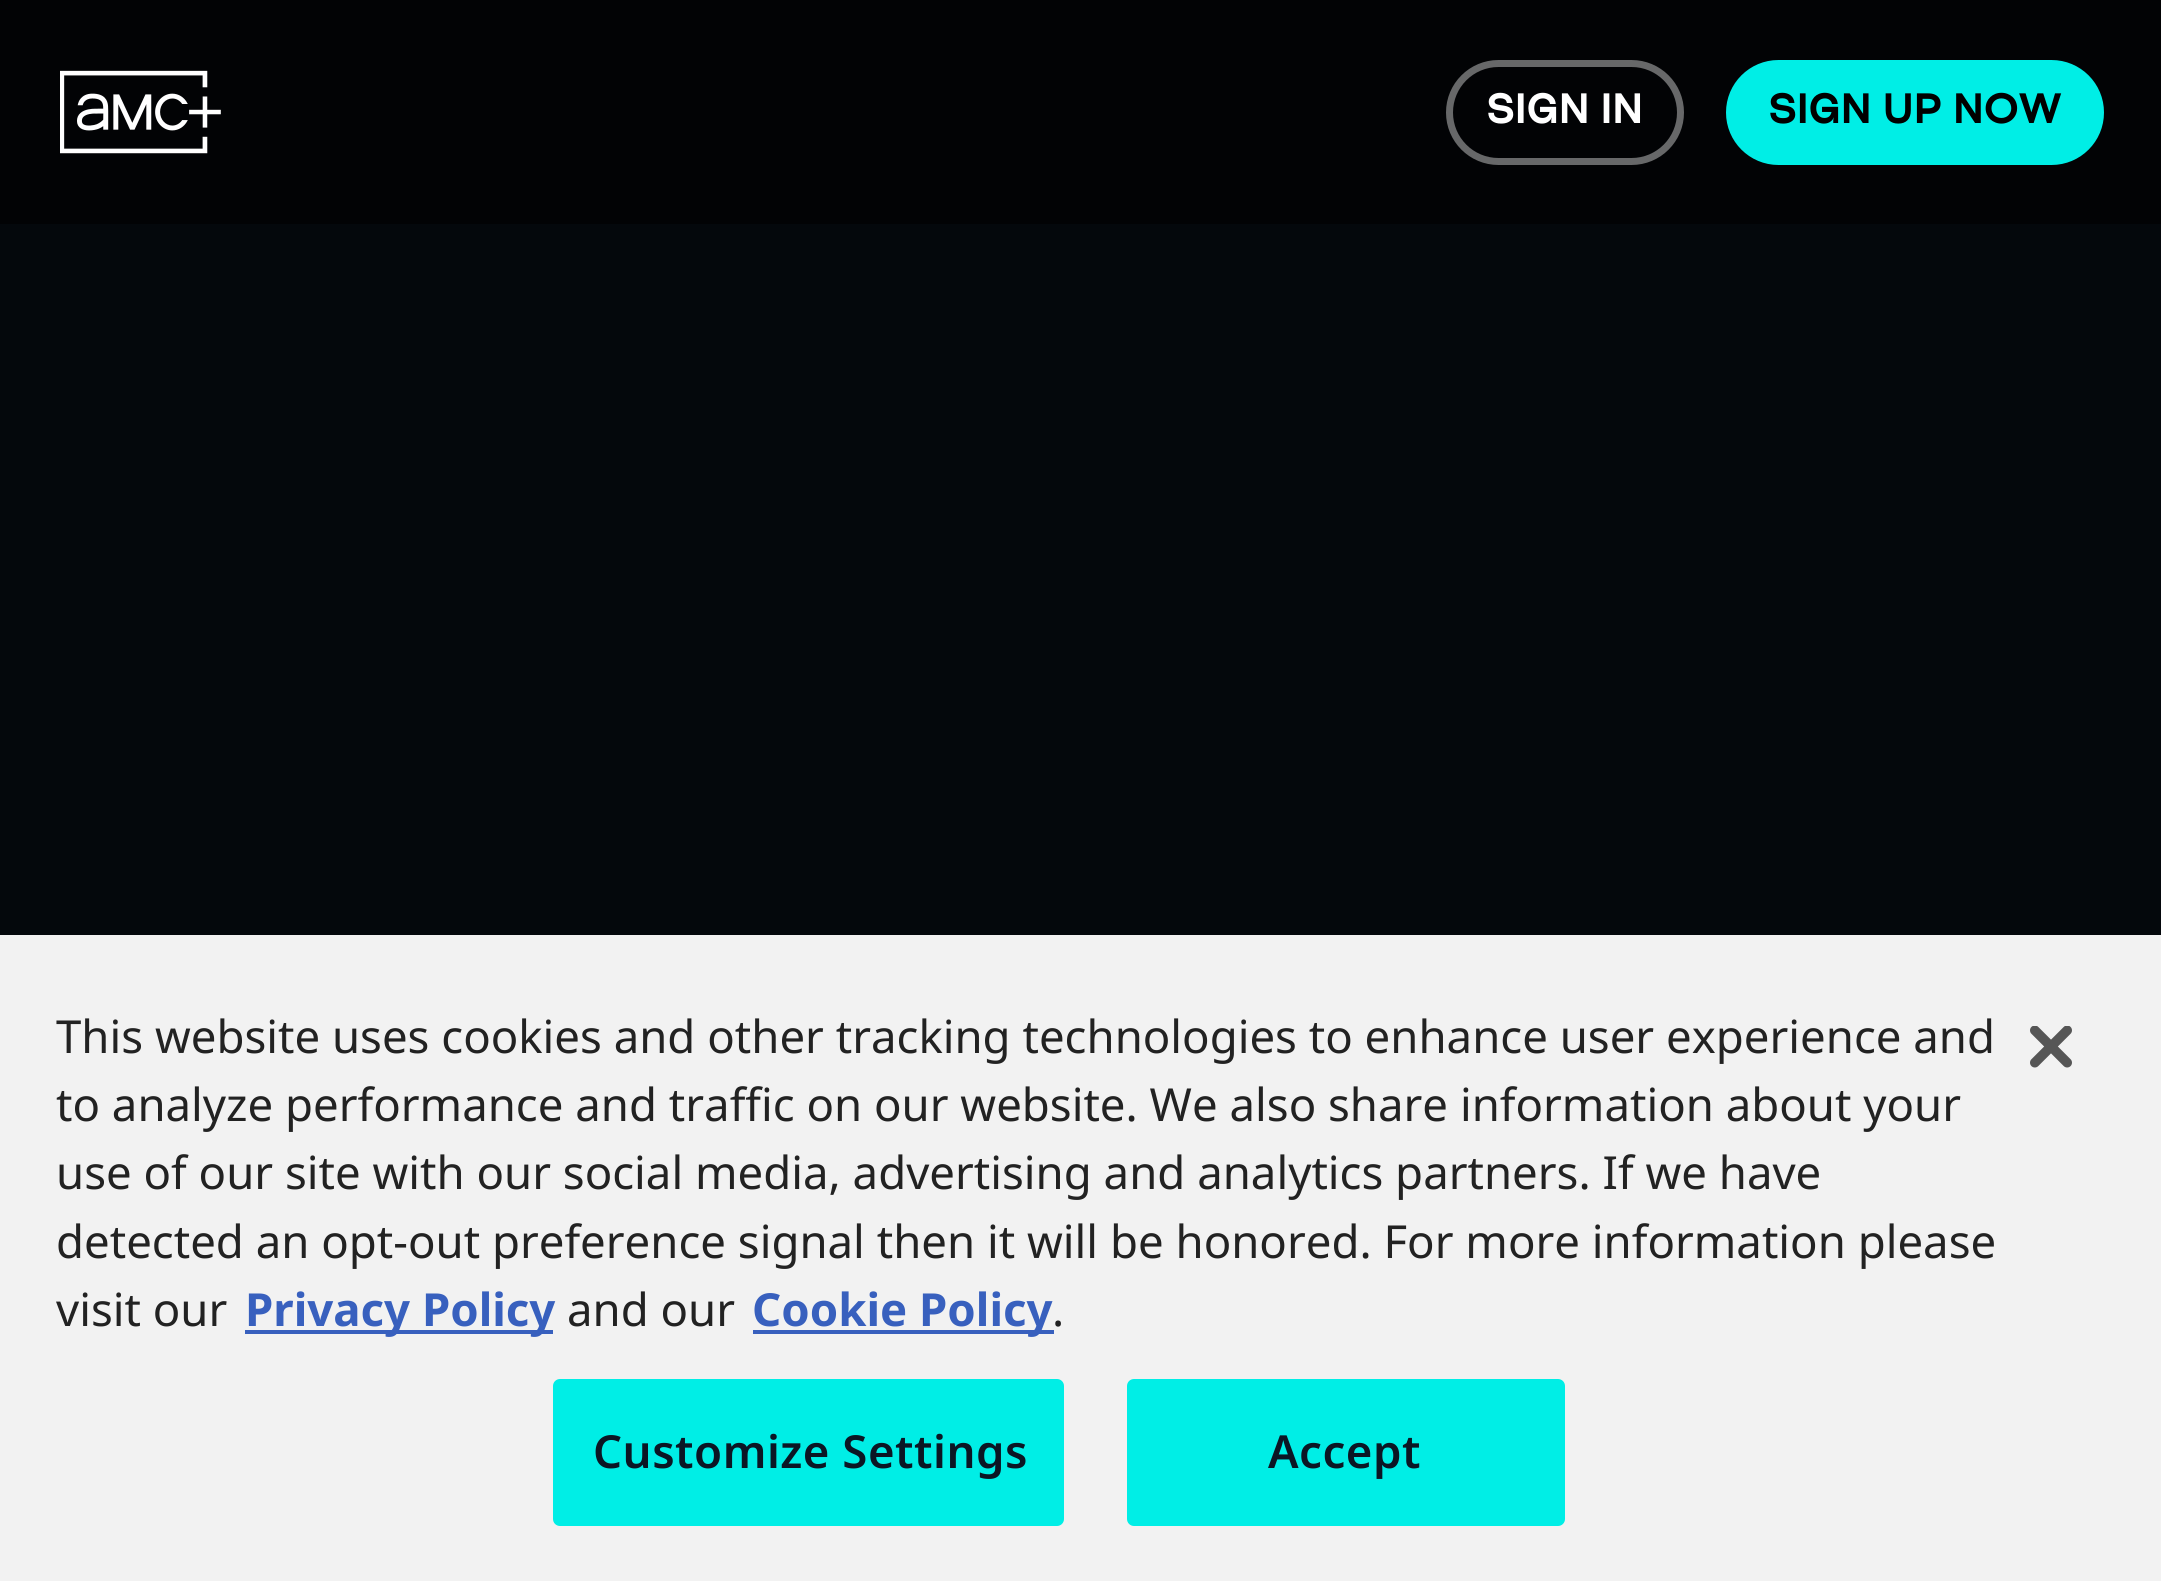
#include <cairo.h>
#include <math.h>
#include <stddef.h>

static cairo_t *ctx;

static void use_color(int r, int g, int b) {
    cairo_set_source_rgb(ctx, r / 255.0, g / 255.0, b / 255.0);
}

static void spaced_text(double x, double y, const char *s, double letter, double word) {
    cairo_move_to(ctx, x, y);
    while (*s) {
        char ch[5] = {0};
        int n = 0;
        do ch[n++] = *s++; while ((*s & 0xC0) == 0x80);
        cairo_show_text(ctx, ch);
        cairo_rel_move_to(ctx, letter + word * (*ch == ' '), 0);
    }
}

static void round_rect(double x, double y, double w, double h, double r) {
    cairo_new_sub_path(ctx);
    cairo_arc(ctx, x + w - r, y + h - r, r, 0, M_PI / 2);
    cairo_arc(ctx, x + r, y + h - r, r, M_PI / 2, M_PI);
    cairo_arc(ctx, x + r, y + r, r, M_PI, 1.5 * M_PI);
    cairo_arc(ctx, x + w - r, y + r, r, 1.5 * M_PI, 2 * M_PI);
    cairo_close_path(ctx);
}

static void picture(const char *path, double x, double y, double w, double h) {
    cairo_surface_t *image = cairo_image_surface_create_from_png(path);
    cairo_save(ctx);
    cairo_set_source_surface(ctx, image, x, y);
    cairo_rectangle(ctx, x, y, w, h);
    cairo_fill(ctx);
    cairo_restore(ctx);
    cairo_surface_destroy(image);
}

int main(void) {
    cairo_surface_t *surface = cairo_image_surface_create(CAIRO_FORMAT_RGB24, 2161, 1581);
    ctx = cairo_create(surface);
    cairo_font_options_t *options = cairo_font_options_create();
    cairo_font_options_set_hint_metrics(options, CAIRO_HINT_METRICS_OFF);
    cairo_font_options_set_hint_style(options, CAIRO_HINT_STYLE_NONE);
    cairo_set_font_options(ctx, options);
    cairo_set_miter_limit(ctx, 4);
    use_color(4, 8, 12);
    cairo_paint(ctx);
    use_color(2, 3, 5);
    cairo_rectangle(ctx, 0, 0, 2161, 224);
    cairo_fill(ctx);
    picture("img1.png", 60, 70, 161, 84);
    round_rect(1449.5, 63.5, 231, 98, 49);
    use_color(103, 104, 105);
    cairo_set_line_width(ctx, 7);
    cairo_stroke(ctx);
    cairo_select_font_face(ctx, "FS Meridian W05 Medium", CAIRO_FONT_SLANT_NORMAL, CAIRO_FONT_WEIGHT_BOLD);
    cairo_set_font_size(ctx, 42);
    use_color(255, 255, 255);
    cairo_move_to(ctx, 1486, 123);
    cairo_show_text(ctx, "SIGN IN");
    use_color(0, 238, 230);
    round_rect(1729.5, 63.5, 371, 98, 49);
    cairo_fill_preserve(ctx);
    cairo_stroke(ctx);
    use_color(0, 0, 0);
    cairo_move_to(ctx, 1768, 123);
    cairo_show_text(ctx, "SIGN UP NOW");
    use_color(242, 242, 242);
    cairo_rectangle(ctx, 0, 935, 2161, 646);
    cairo_fill(ctx);
    cairo_select_font_face(ctx, "Noto Sans", CAIRO_FONT_SLANT_NORMAL, CAIRO_FONT_WEIGHT_NORMAL);
    cairo_set_font_size(ctx, 45.55);
    use_color(34, 34, 34);
    cairo_move_to(ctx, 56, 1053);
    cairo_show_text(ctx, "This website uses cookies and other tracking technologies to enhance user experience and");
    cairo_move_to(ctx, 56, 1121);
    cairo_show_text(ctx, "to analyze performance and traffic on our website. We also share information about your");
    cairo_move_to(ctx, 56, 1189);
    cairo_show_text(ctx, "use of our site with our social media, advertising and analytics partners. If we have");
    cairo_move_to(ctx, 56, 1258);
    cairo_show_text(ctx, "detected an opt-out preference signal then it will be honored. For more information please");
    cairo_move_to(ctx, 56, 1326);
    cairo_show_text(ctx, "visit our");
    use_color(56, 96, 190);
    cairo_rectangle(ctx, 245, 1330, 308, 4);
    cairo_fill(ctx);
    cairo_select_font_face(ctx, "Noto Sans", CAIRO_FONT_SLANT_NORMAL, CAIRO_FONT_WEIGHT_BOLD);
    cairo_move_to(ctx, 245, 1326);
    cairo_show_text(ctx, "Privacy Policy");
    cairo_select_font_face(ctx, "Noto Sans", CAIRO_FONT_SLANT_NORMAL, CAIRO_FONT_WEIGHT_NORMAL);
    use_color(34, 34, 34);
    cairo_move_to(ctx, 567, 1326);
    cairo_show_text(ctx, "and our");
    use_color(56, 96, 190);
    cairo_rectangle(ctx, 753, 1330, 301, 4);
    cairo_fill(ctx);
    cairo_select_font_face(ctx, "Noto Sans", CAIRO_FONT_SLANT_NORMAL, CAIRO_FONT_WEIGHT_BOLD);
    cairo_move_to(ctx, 752, 1326);
    cairo_show_text(ctx, "Cookie Policy");
    cairo_select_font_face(ctx, "Noto Sans", CAIRO_FONT_SLANT_NORMAL, CAIRO_FONT_WEIGHT_NORMAL);
    use_color(34, 34, 34);
    cairo_move_to(ctx, 1052, 1326);
    cairo_show_text(ctx, ".");
    use_color(0, 238, 230);
    round_rect(553, 1379, 511, 147, 7);
    cairo_fill(ctx);
    cairo_select_font_face(ctx, "Noto Sans SemiBold", CAIRO_FONT_SLANT_NORMAL, CAIRO_FONT_WEIGHT_NORMAL);
    use_color(11, 22, 36);
    spaced_text(593, 1468, "Customize Settings", 0.5, 0);
    use_color(0, 238, 230);
    round_rect(1129, 1381, 434, 143, 5);
    cairo_fill_preserve(ctx);
    cairo_set_line_width(ctx, 4);
    cairo_stroke(ctx);
    use_color(11, 22, 36);
    spaced_text(1268, 1468, "Accept", 0.5, 0);
    picture("img2.png", 2030, 1026, 42, 42);
    cairo_surface_write_to_png(surface, "result.png");
    cairo_font_options_destroy(options);
    cairo_destroy(ctx);
    cairo_surface_destroy(surface);
    return 0;
}
